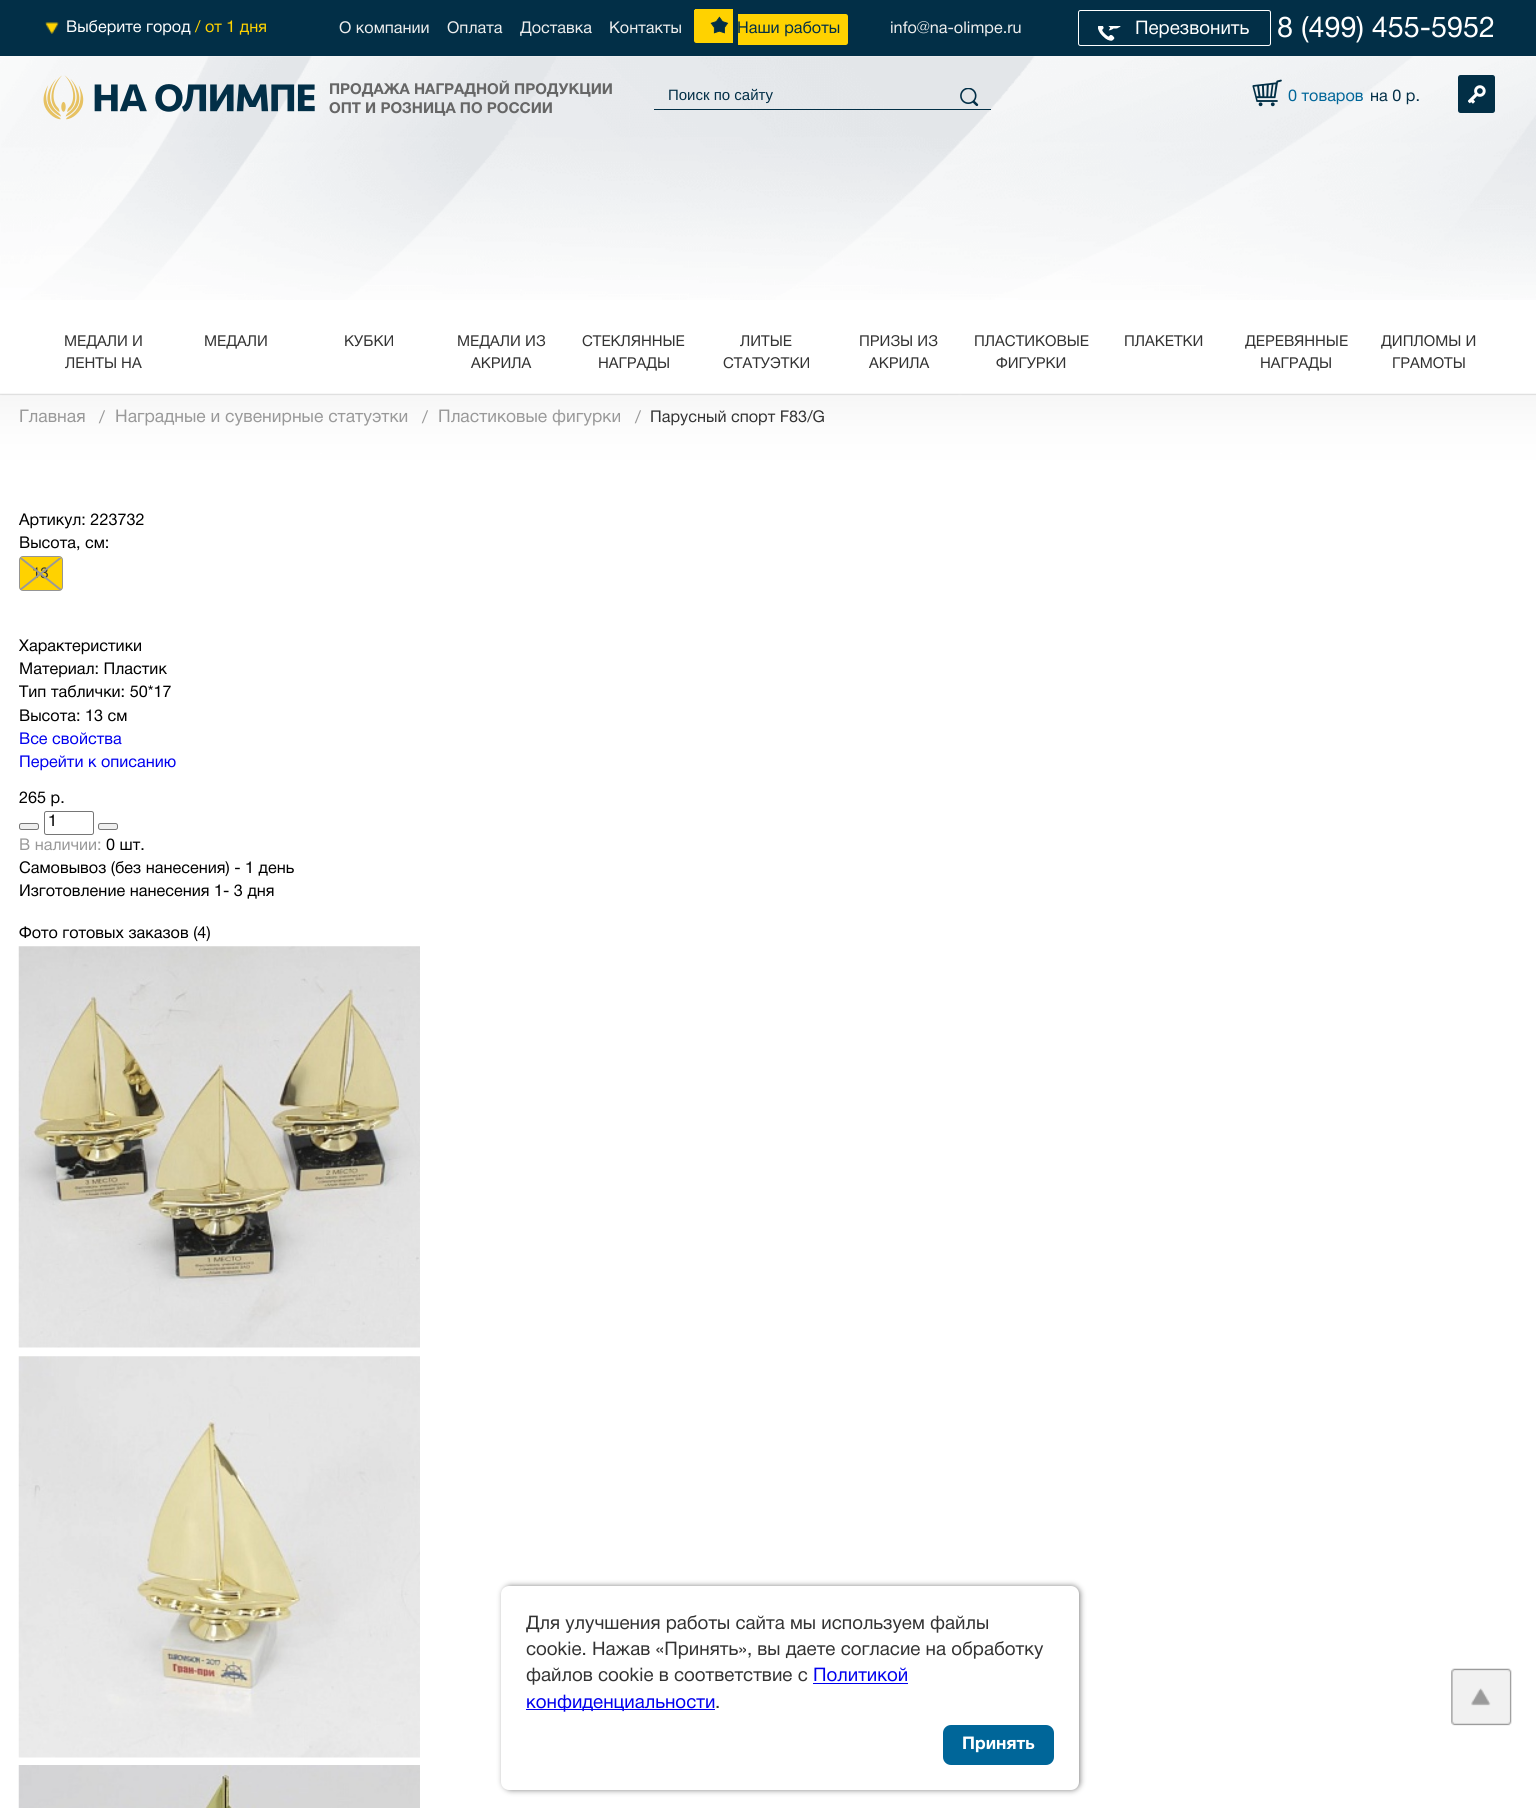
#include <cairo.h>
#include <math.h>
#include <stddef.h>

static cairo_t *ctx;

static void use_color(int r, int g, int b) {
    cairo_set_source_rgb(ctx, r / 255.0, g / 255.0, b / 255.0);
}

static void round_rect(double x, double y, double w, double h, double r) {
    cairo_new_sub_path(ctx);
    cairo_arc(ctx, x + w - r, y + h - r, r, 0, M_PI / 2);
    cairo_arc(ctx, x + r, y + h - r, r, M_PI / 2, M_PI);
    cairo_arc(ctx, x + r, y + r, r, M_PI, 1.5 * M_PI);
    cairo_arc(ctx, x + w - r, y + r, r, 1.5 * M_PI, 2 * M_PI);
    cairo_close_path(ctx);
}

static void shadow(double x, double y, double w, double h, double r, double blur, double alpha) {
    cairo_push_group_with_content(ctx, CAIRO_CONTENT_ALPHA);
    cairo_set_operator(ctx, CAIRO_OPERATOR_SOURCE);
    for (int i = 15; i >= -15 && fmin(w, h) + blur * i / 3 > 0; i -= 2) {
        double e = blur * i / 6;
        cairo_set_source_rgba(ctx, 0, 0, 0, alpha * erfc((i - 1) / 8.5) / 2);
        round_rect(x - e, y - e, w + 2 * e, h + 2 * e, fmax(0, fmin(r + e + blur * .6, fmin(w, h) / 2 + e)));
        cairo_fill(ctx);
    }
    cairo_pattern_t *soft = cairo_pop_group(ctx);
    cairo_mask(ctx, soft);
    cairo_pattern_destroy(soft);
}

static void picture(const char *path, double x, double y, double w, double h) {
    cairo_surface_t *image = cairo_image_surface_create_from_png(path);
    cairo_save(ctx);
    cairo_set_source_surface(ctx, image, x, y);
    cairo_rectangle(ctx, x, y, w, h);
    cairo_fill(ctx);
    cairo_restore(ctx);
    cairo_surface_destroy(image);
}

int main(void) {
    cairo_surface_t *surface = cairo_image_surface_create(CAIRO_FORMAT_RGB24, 1536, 1808);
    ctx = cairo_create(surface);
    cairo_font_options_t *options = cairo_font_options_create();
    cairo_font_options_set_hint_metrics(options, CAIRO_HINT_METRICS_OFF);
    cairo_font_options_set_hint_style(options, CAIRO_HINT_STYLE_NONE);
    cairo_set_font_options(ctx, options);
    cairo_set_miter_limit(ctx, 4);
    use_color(255, 255, 255);
    cairo_paint(ctx);
    use_color(2, 47, 71);
    cairo_rectangle(ctx, 0, 0, 1536, 56);
    cairo_fill(ctx);
    picture("img1.png", 45, 22, 14, 12);
    cairo_select_font_face(ctx, "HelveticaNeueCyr", CAIRO_FONT_SLANT_NORMAL, CAIRO_FONT_WEIGHT_NORMAL);
    cairo_set_font_size(ctx, 16.25);
    use_color(255, 255, 255);
    cairo_move_to(ctx, 66, 32);
    cairo_show_text(ctx, "Выберите город");
    use_color(255, 210, 0);
    cairo_move_to(ctx, 195, 32);
    cairo_show_text(ctx, "/ от 1 дня");
    use_color(238, 238, 238);
    cairo_move_to(ctx, 339, 33);
    cairo_show_text(ctx, "О компании");
    cairo_move_to(ctx, 447, 33);
    cairo_show_text(ctx, "Оплата");
    cairo_move_to(ctx, 520, 33);
    cairo_show_text(ctx, "Доставка");
    cairo_move_to(ctx, 609, 33);
    cairo_show_text(ctx, "Контакты");
    use_color(255, 210, 0);
    cairo_new_path(ctx);
    cairo_move_to(ctx, 696.5, 9);
    cairo_line_to(ctx, 733, 9);
    cairo_line_to(ctx, 733, 43);
    cairo_line_to(ctx, 696.5, 43);
    cairo_curve_to(ctx, 695, 43, 694, 42, 694, 40.5);
    cairo_line_to(ctx, 694, 11.5);
    cairo_curve_to(ctx, 694, 10, 695, 9, 696.5, 9);
    cairo_close_path(ctx);
    cairo_fill(ctx);
    cairo_rectangle(ctx, 695, 9, 2, 1);
    cairo_fill(ctx);
    cairo_rectangle(ctx, 694, 10, 1, 31);
    cairo_fill(ctx);
    cairo_new_path(ctx);
    cairo_move_to(ctx, 738, 14);
    cairo_line_to(ctx, 845.5, 14);
    cairo_curve_to(ctx, 847, 14, 848, 15, 848, 16.5);
    cairo_line_to(ctx, 848, 42.5);
    cairo_curve_to(ctx, 848, 44, 847, 45, 845.5, 45);
    cairo_line_to(ctx, 738, 45);
    cairo_close_path(ctx);
    cairo_fill(ctx);
    cairo_rectangle(ctx, 845, 14, 1, 1);
    cairo_fill(ctx);
    cairo_rectangle(ctx, 845, 44, 1, 1);
    cairo_fill(ctx);
    picture("img2.png", 710, 16, 19, 18);
    use_color(2, 47, 71);
    cairo_move_to(ctx, 737, 33);
    cairo_show_text(ctx, "Наши работы");
    use_color(238, 238, 238);
    cairo_move_to(ctx, 890, 33);
    cairo_show_text(ctx, "info@na-olimpe.ru");
    round_rect(1078.5, 10.5, 192, 35, 2);
    use_color(255, 255, 255);
    cairo_set_line_width(ctx, 1);
    cairo_stroke(ctx);
    picture("img3.png", 1098, 26, 23, 15);
    cairo_set_font_size(ctx, 18.75);
    cairo_move_to(ctx, 1135, 34);
    cairo_show_text(ctx, "Перезвонить");
    cairo_set_font_size(ctx, 28.75);
    cairo_move_to(ctx, 1277, 37);
    cairo_show_text(ctx, "8 (499) 455-5952");
    picture("img4.png", 0, 56, 1536, 244);
    picture("img5.png", 43, 75, 272, 45);
    cairo_select_font_face(ctx, "HelveticaNeueCyr", CAIRO_FONT_SLANT_NORMAL, CAIRO_FONT_WEIGHT_BOLD);
    cairo_set_font_size(ctx, 15);
    use_color(102, 102, 102);
    cairo_move_to(ctx, 329, 94);
    cairo_show_text(ctx, "ПРОДАЖА НАГРАДНОЙ ПРОДУКЦИИ");
    cairo_move_to(ctx, 329, 113);
    cairo_show_text(ctx, "ОПТ И РОЗНИЦА ПО РОССИИ");
    use_color(2, 47, 70);
    cairo_rectangle(ctx, 654, 109, 337, 1);
    cairo_fill(ctx);
    cairo_select_font_face(ctx, "Liberation Sans", CAIRO_FONT_SLANT_NORMAL, CAIRO_FONT_WEIGHT_NORMAL);
    use_color(2, 47, 71);
    cairo_move_to(ctx, 668, 100);
    cairo_show_text(ctx, "Поиск по сайту");
    picture("img6.png", 960, 88, 19, 18);
    picture("img7.png", 1252, 79, 30, 28);
    cairo_select_font_face(ctx, "HelveticaNeueCyr", CAIRO_FONT_SLANT_NORMAL, CAIRO_FONT_WEIGHT_NORMAL);
    cairo_set_font_size(ctx, 16.25);
    use_color(0, 102, 153);
    cairo_move_to(ctx, 1288, 101);
    cairo_show_text(ctx, "0 товаров");
    use_color(2, 47, 71);
    cairo_move_to(ctx, 1370, 101);
    cairo_show_text(ctx, "на 0 р.");
    use_color(2, 47, 70);
    round_rect(1458, 75, 37, 38, 2.5);
    cairo_fill(ctx);
    picture("img8.png", 1468, 85, 18, 19);
    cairo_set_font_size(ctx, 15);
    use_color(51, 51, 51);
    cairo_move_to(ctx, 64, 346);
    cairo_show_text(ctx, "МЕДАЛИ И");
    cairo_move_to(ctx, 65, 368);
    cairo_show_text(ctx, "ЛЕНТЫ НА");
    cairo_move_to(ctx, 204, 346);
    cairo_show_text(ctx, "МЕДАЛИ");
    cairo_move_to(ctx, 344, 346);
    cairo_show_text(ctx, "КУБКИ");
    cairo_move_to(ctx, 457, 346);
    cairo_show_text(ctx, "МЕДАЛИ ИЗ");
    cairo_move_to(ctx, 471, 368);
    cairo_show_text(ctx, "АКРИЛА");
    cairo_move_to(ctx, 582, 346);
    cairo_show_text(ctx, "СТЕКЛЯННЫЕ");
    cairo_move_to(ctx, 598, 368);
    cairo_show_text(ctx, "НАГРАДЫ");
    cairo_move_to(ctx, 740, 346);
    cairo_show_text(ctx, "ЛИТЫЕ");
    cairo_move_to(ctx, 723, 368);
    cairo_show_text(ctx, "СТАТУЭТКИ");
    cairo_move_to(ctx, 859, 346);
    cairo_show_text(ctx, "ПРИЗЫ ИЗ");
    cairo_move_to(ctx, 869, 368);
    cairo_show_text(ctx, "АКРИЛА");
    cairo_move_to(ctx, 974, 346);
    cairo_show_text(ctx, "ПЛАСТИКОВЫЕ");
    cairo_move_to(ctx, 996, 368);
    cairo_show_text(ctx, "ФИГУРКИ");
    cairo_move_to(ctx, 1124, 346);
    cairo_show_text(ctx, "ПЛАКЕТКИ");
    cairo_move_to(ctx, 1245, 346);
    cairo_show_text(ctx, "ДЕРЕВЯННЫЕ");
    cairo_move_to(ctx, 1260, 368);
    cairo_show_text(ctx, "НАГРАДЫ");
    cairo_move_to(ctx, 1381, 346);
    cairo_show_text(ctx, "ДИПЛОМЫ И");
    cairo_move_to(ctx, 1392, 368);
    cairo_show_text(ctx, "ГРАМОТЫ");
    picture("img9.png", 0, 393, 1536, 96);
    cairo_set_font_size(ctx, 17.5);
    use_color(153, 153, 153);
    cairo_move_to(ctx, 19, 422);
    cairo_show_text(ctx, "Главная");
    cairo_move_to(ctx, 99, 423);
    cairo_show_text(ctx, "/");
    cairo_move_to(ctx, 115, 422);
    cairo_show_text(ctx, "Наградные и сувенирные статуэтки");
    cairo_move_to(ctx, 422, 423);
    cairo_show_text(ctx, "/");
    cairo_move_to(ctx, 438, 422);
    cairo_show_text(ctx, "Пластиковые фигурки");
    cairo_move_to(ctx, 635, 423);
    cairo_show_text(ctx, "/");
    cairo_set_font_size(ctx, 16.25);
    use_color(51, 51, 51);
    cairo_move_to(ctx, 650, 422);
    cairo_show_text(ctx, "Парусный спорт F83/G");
    use_color(0, 0, 0);
    cairo_move_to(ctx, 19, 525);
    cairo_show_text(ctx, "Артикул: 223732");
    cairo_move_to(ctx, 19, 548);
    cairo_show_text(ctx, "Высота, см:");
    use_color(255, 210, 0);
    round_rect(19.5, 556.5, 43, 34, 3.5);
    cairo_fill_preserve(ctx);
    use_color(149, 149, 149);
    cairo_stroke(ctx);
    cairo_set_font_size(ctx, 15);
    use_color(51, 51, 51);
    cairo_move_to(ctx, 32, 578);
    cairo_show_text(ctx, "13");
    cairo_save(ctx);
    cairo_rectangle(ctx, 20, 558, 41, 32);
    cairo_clip(ctx);
    cairo_new_path(ctx);
    cairo_move_to(ctx, 20, 557.5);
    cairo_line_to(ctx, 61, 590);
    cairo_move_to(ctx, 20, 590);
    cairo_line_to(ctx, 61, 557.5);
    use_color(153, 153, 153);
    cairo_set_line_width(ctx, 1.9);
    cairo_stroke(ctx);
    cairo_restore(ctx);
    cairo_set_font_size(ctx, 16.25);
    use_color(0, 0, 0);
    cairo_move_to(ctx, 19, 651);
    cairo_show_text(ctx, "Характеристики");
    cairo_move_to(ctx, 19, 674);
    cairo_show_text(ctx, "Материал: Пластик");
    cairo_move_to(ctx, 19, 697);
    cairo_show_text(ctx, "Тип таблички: 50*17");
    cairo_move_to(ctx, 19, 721);
    cairo_show_text(ctx, "Высота: 13 см");
    use_color(0, 0, 238);
    cairo_move_to(ctx, 19, 744);
    cairo_show_text(ctx, "Все свойства");
    cairo_move_to(ctx, 19, 767);
    cairo_show_text(ctx, "Перейти к описанию");
    use_color(0, 0, 0);
    cairo_move_to(ctx, 19, 803);
    cairo_show_text(ctx, "265 р.");
    use_color(239, 239, 239);
    round_rect(19.5, 823.5, 19, 6, 2);
    cairo_fill_preserve(ctx);
    use_color(118, 118, 118);
    cairo_stroke(ctx);
    round_rect(44.5, 811.5, 49, 23, 2);
    cairo_stroke(ctx);
    use_color(0, 0, 0);
    cairo_move_to(ctx, 48, 826);
    cairo_show_text(ctx, "1");
    use_color(239, 239, 239);
    round_rect(98.5, 823.5, 19, 6, 2);
    cairo_fill_preserve(ctx);
    use_color(118, 118, 118);
    cairo_stroke(ctx);
    use_color(153, 153, 153);
    cairo_move_to(ctx, 19, 850);
    cairo_show_text(ctx, "В наличии:");
    use_color(0, 0, 0);
    cairo_move_to(ctx, 106, 850);
    cairo_show_text(ctx, "0 шт.");
    cairo_move_to(ctx, 19, 873);
    cairo_show_text(ctx, "Самовывоз (без нанесения) - 1 день");
    cairo_move_to(ctx, 19, 896);
    cairo_show_text(ctx, "Изготовление нанесения 1- 3 дня");
    cairo_move_to(ctx, 19, 938);
    cairo_show_text(ctx, "Фото готовых заказов (4)");
    picture("img10.png", 18, 946, 402, 402);
    picture("img11.png", 18, 1356, 402, 402);
    picture("img12.png", 18, 1765, 402, 43);
    picture("img13.png", 1451, 1668, 61, 58);
    use_color(128, 128, 128);
    shadow(503, 1586, 577, 204, 8, 3, 1);
    use_color(255, 255, 255);
    round_rect(501, 1586, 578, 204, 8);
    cairo_fill(ctx);
    cairo_set_font_size(ctx, 18.75);
    use_color(51, 51, 51);
    cairo_move_to(ctx, 526, 1629);
    cairo_show_text(ctx, "Для улучшения работы сайта мы используем файлы");
    cairo_move_to(ctx, 526, 1655);
    cairo_show_text(ctx, "cookie. Нажав «Принять», вы даете согласие на обработку");
    cairo_move_to(ctx, 526, 1681);
    cairo_show_text(ctx, "файлов cookie в соответствие с");
    use_color(0, 0, 238);
    cairo_move_to(ctx, 813, 1681);
    cairo_show_text(ctx, "Политикой");
    cairo_rectangle(ctx, 813, 1683, 95, 1);
    cairo_fill(ctx);
    cairo_rectangle(ctx, 526, 1709, 189, 1);
    cairo_fill(ctx);
    cairo_move_to(ctx, 526, 1708);
    cairo_show_text(ctx, "конфиденциальности");
    use_color(51, 51, 51);
    cairo_move_to(ctx, 715, 1708);
    cairo_show_text(ctx, ".");
    use_color(0, 102, 153);
    round_rect(943, 1725, 111, 40, 8);
    cairo_fill(ctx);
    cairo_select_font_face(ctx, "HelveticaNeueCyr", CAIRO_FONT_SLANT_NORMAL, CAIRO_FONT_WEIGHT_BOLD);
    cairo_set_font_size(ctx, 17.5);
    use_color(255, 255, 255);
    cairo_move_to(ctx, 962, 1749);
    cairo_show_text(ctx, "Принять");
    cairo_surface_write_to_png(surface, "result.png");
    cairo_font_options_destroy(options);
    cairo_destroy(ctx);
    cairo_surface_destroy(surface);
    return 0;
}
